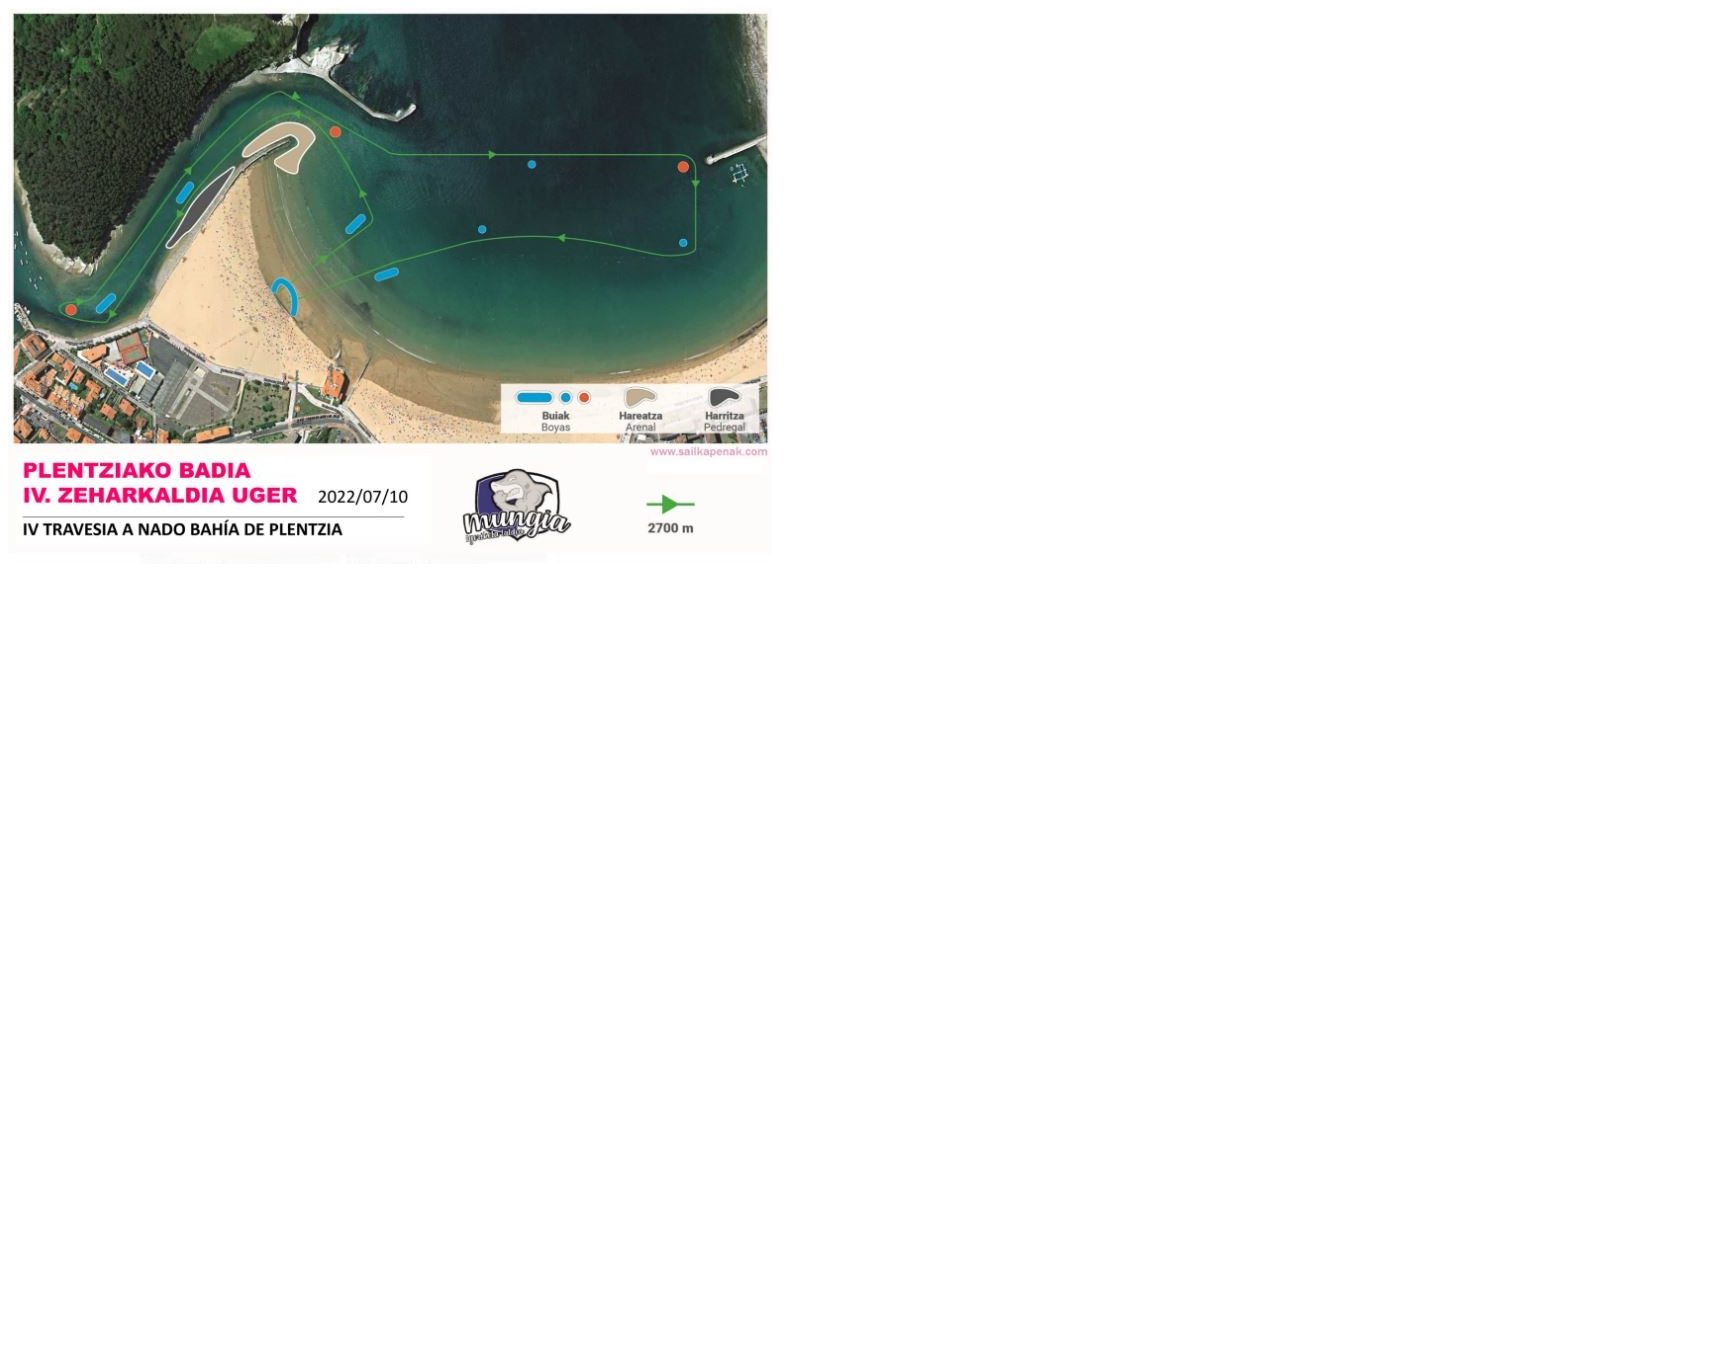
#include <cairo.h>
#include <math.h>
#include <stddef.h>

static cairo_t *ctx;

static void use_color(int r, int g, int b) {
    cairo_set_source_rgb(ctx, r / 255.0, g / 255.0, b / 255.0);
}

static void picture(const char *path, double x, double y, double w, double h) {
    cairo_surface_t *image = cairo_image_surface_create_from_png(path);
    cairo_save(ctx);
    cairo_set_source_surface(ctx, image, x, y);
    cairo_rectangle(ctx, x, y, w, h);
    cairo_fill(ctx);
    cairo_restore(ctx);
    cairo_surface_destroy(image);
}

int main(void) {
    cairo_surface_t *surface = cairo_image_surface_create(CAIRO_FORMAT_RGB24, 1732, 1352);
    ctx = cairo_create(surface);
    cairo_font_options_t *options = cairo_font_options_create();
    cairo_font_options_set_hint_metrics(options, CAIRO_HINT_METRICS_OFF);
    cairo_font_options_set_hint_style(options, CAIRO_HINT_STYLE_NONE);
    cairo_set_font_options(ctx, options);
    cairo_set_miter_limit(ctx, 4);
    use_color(255, 255, 255);
    cairo_paint(ctx);
    picture("img1.png", 8, 8, 764, 556);
    cairo_surface_write_to_png(surface, "result.png");
    cairo_font_options_destroy(options);
    cairo_destroy(ctx);
    cairo_surface_destroy(surface);
    return 0;
}
